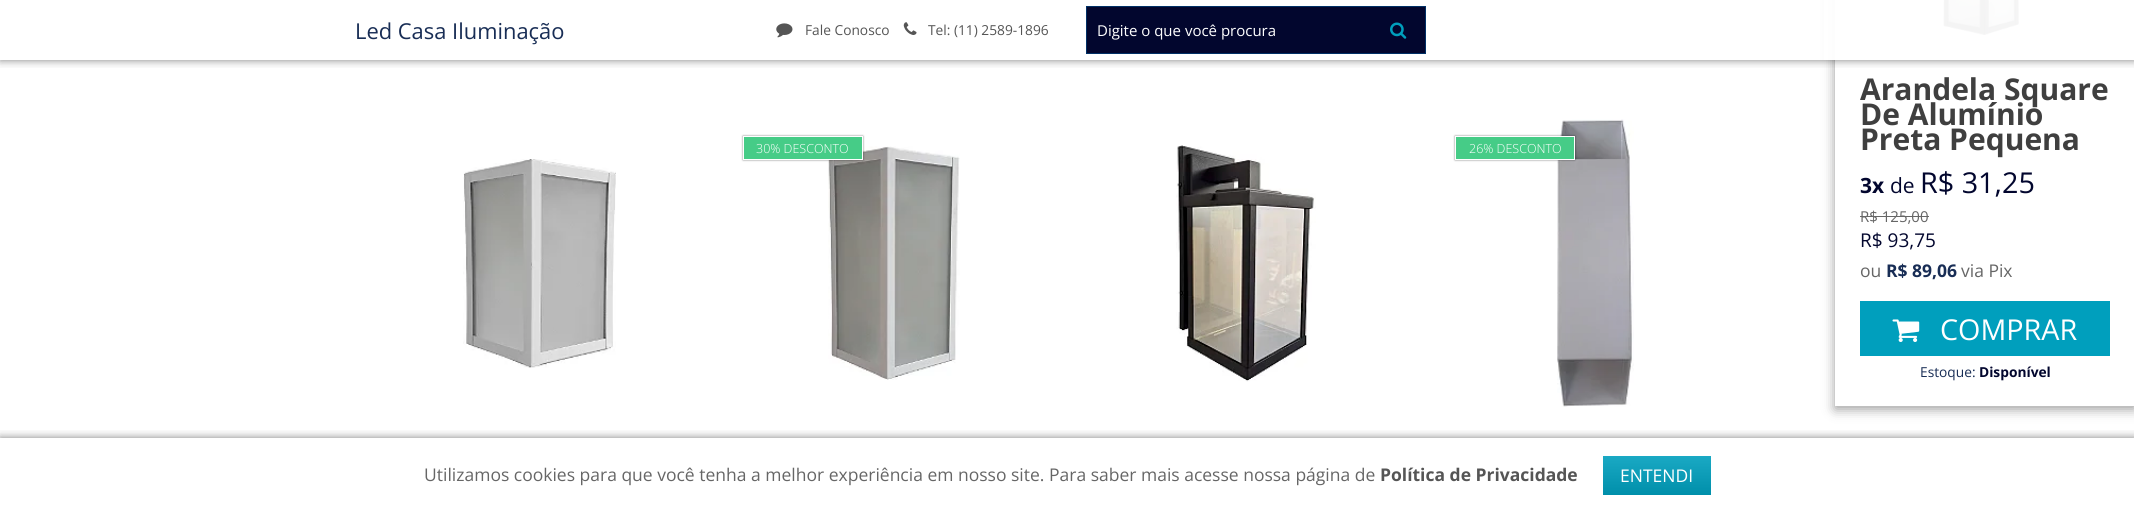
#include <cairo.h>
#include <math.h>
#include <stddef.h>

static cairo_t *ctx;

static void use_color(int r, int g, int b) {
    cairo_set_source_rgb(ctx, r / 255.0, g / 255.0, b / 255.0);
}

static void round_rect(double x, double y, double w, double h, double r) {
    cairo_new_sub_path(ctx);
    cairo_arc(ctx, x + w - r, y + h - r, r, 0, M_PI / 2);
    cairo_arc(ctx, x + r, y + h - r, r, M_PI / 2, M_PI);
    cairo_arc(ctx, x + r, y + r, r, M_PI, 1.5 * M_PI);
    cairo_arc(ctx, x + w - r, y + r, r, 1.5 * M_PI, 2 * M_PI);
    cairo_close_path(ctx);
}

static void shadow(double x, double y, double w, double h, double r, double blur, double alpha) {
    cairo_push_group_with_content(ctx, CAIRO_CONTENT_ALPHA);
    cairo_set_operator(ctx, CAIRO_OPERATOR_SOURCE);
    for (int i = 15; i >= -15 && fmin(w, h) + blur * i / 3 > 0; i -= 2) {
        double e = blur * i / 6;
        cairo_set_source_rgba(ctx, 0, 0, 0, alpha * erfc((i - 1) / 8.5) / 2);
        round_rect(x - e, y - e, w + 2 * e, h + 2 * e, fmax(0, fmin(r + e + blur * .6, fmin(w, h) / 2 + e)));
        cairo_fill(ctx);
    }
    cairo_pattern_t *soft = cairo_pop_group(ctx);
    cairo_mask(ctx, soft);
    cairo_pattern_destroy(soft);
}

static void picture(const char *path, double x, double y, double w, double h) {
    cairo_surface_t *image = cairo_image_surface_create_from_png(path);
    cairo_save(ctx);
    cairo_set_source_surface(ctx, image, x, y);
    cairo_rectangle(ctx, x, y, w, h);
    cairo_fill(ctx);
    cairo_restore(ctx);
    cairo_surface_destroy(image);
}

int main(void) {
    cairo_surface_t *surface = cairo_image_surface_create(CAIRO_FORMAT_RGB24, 2134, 512);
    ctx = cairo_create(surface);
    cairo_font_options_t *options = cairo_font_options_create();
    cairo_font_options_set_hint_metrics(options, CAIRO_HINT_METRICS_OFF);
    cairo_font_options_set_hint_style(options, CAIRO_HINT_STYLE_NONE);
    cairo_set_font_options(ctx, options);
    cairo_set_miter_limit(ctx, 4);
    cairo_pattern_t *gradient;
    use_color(255, 255, 255);
    cairo_paint(ctx);
    cairo_save(ctx);
    cairo_set_fill_rule(ctx, CAIRO_FILL_RULE_EVEN_ODD);
    cairo_new_path(ctx);
    cairo_move_to(ctx, 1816, 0);
    cairo_line_to(ctx, 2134, 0);
    cairo_line_to(ctx, 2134, 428);
    cairo_line_to(ctx, 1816, 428);
    cairo_close_path(ctx);
    cairo_move_to(ctx, 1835, -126);
    cairo_line_to(ctx, 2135, -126);
    cairo_line_to(ctx, 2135, 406);
    cairo_line_to(ctx, 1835, 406);
    cairo_close_path(ctx);
    cairo_clip(ctx);
    use_color(0, 0, 0);
    shadow(1835, -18, 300, 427, 0, 6, 0.4);
    cairo_restore(ctx);
    picture("img8.png", 1943, 0, 77, 35);
    cairo_save(ctx);
    cairo_rectangle(ctx, 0, 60, 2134, 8);
    cairo_clip(ctx);
    use_color(0, 0, 0);
    shadow(0, 0, 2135, 60, 0, 4.5, 0.5);
    cairo_restore(ctx);
    cairo_set_source_rgba(ctx, 1, 1, 1, 0.95);
    cairo_rectangle(ctx, 1824, 0, 196, 60);
    cairo_fill(ctx);
    cairo_select_font_face(ctx, "Open Sans", CAIRO_FONT_SLANT_NORMAL, CAIRO_FONT_WEIGHT_NORMAL);
    cairo_set_font_size(ctx, 21.9);
    use_color(24, 45, 85);
    cairo_move_to(ctx, 355, 39);
    cairo_show_text(ctx, "Led Casa Iluminação");
    picture("img1.png", 776, 23, 17, 15);
    cairo_set_font_size(ctx, 13.75);
    use_color(85, 85, 85);
    cairo_move_to(ctx, 805, 35);
    cairo_show_text(ctx, "Fale Conosco");
    picture("img2.png", 903, 22, 14, 13);
    cairo_move_to(ctx, 928, 35);
    cairo_show_text(ctx, "Tel: (11) 2589-1896");
    use_color(2, 6, 46);
    cairo_rectangle(ctx, 1087, 7, 338, 46);
    cairo_fill(ctx);
    use_color(2, 6, 43);
    cairo_rectangle(ctx, 1088, 8, 337, 1);
    cairo_fill(ctx);
    cairo_rectangle(ctx, 1086.5, 6.5, 339, 47);
    use_color(0, 48, 102);
    cairo_set_line_width(ctx, 1);
    cairo_stroke(ctx);
    cairo_set_font_size(ctx, 15);
    use_color(255, 255, 255);
    cairo_move_to(ctx, 1097, 36);
    cairo_show_text(ctx, "Digite o que você procura");
    picture("img3.png", 1390, 22, 17, 17);
    picture("img4.png", 463, 159, 153, 209);
    picture("img5.png", 828, 146, 132, 234);
    use_color(0, 0, 0);
    shadow(743, 136, 120, 24, 0, 1, 0.5);
    use_color(70, 204, 135);
    cairo_rectangle(ctx, 743.5, 136.5, 119, 23);
    cairo_fill_preserve(ctx);
    use_color(255, 255, 255);
    cairo_stroke(ctx);
    cairo_select_font_face(ctx, "Open Sans Light", CAIRO_FONT_SLANT_NORMAL, CAIRO_FONT_WEIGHT_NORMAL);
    cairo_set_font_size(ctx, 12.5);
    cairo_move_to(ctx, 756, 153);
    cairo_show_text(ctx, "30% DESCONTO");
    picture("img6.png", 1176, 145, 140, 237);
    picture("img7.png", 1557, 119, 77, 288);
    use_color(0, 0, 0);
    shadow(1455, 136, 120, 24, 0, 1, 0.5);
    use_color(70, 204, 135);
    cairo_rectangle(ctx, 1455.5, 136.5, 119, 23);
    cairo_fill_preserve(ctx);
    use_color(255, 255, 255);
    cairo_stroke(ctx);
    cairo_move_to(ctx, 1469, 153);
    cairo_show_text(ctx, "26% DESCONTO");
    cairo_select_font_face(ctx, "Open Sans", CAIRO_FONT_SLANT_NORMAL, CAIRO_FONT_WEIGHT_BOLD);
    cairo_set_font_size(ctx, 30);
    use_color(63, 63, 63);
    cairo_move_to(ctx, 1860, 100);
    cairo_show_text(ctx, "Arandela Square");
    cairo_move_to(ctx, 1860, 125);
    cairo_show_text(ctx, "De Alumínio");
    cairo_move_to(ctx, 1860, 150);
    cairo_show_text(ctx, "Preta Pequena");
    cairo_set_font_size(ctx, 21);
    use_color(2, 6, 46);
    cairo_move_to(ctx, 1860, 193);
    cairo_show_text(ctx, "3x");
    cairo_select_font_face(ctx, "Open Sans", CAIRO_FONT_SLANT_NORMAL, CAIRO_FONT_WEIGHT_NORMAL);
    cairo_move_to(ctx, 1890, 193);
    cairo_show_text(ctx, "de");
    cairo_set_font_size(ctx, 28.75);
    cairo_move_to(ctx, 1920, 193);
    cairo_show_text(ctx, "R$ 31,25");
    cairo_set_font_size(ctx, 15);
    use_color(102, 102, 102);
    cairo_move_to(ctx, 1860, 222);
    cairo_show_text(ctx, "R$ 125,00");
    cairo_rectangle(ctx, 1860, 216, 69, 1);
    cairo_fill(ctx);
    cairo_set_font_size(ctx, 19);
    use_color(2, 6, 46);
    cairo_move_to(ctx, 1860, 247);
    cairo_show_text(ctx, "R$ 93,75");
    cairo_set_font_size(ctx, 17.5);
    use_color(102, 102, 102);
    cairo_move_to(ctx, 1860, 277);
    cairo_show_text(ctx, "ou");
    cairo_select_font_face(ctx, "Open Sans", CAIRO_FONT_SLANT_NORMAL, CAIRO_FONT_WEIGHT_BOLD);
    use_color(24, 45, 85);
    cairo_move_to(ctx, 1886, 277);
    cairo_show_text(ctx, "R$ 89,06");
    cairo_select_font_face(ctx, "Open Sans", CAIRO_FONT_SLANT_NORMAL, CAIRO_FONT_WEIGHT_NORMAL);
    use_color(102, 102, 102);
    cairo_move_to(ctx, 1961, 277);
    cairo_show_text(ctx, "via Pix");
    use_color(0, 159, 189);
    cairo_rectangle(ctx, 1860, 301, 250, 55);
    cairo_fill(ctx);
    picture("img9.png", 1892, 319, 28, 23);
    cairo_set_font_size(ctx, 28.75);
    use_color(255, 255, 255);
    cairo_move_to(ctx, 1940, 340);
    cairo_show_text(ctx, "COMPRAR");
    cairo_set_font_size(ctx, 13.75);
    use_color(24, 45, 85);
    cairo_move_to(ctx, 1920, 377);
    cairo_show_text(ctx, "Estoque:");
    cairo_select_font_face(ctx, "Open Sans", CAIRO_FONT_SLANT_NORMAL, CAIRO_FONT_WEIGHT_BOLD);
    use_color(2, 6, 46);
    cairo_move_to(ctx, 1979, 377);
    cairo_show_text(ctx, "Disponível");
    cairo_save(ctx);
    cairo_rectangle(ctx, 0, 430, 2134, 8);
    cairo_clip(ctx);
    use_color(0, 0, 0);
    shadow(0, 438, 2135, 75, 0, 4.5, 0.5);
    cairo_restore(ctx);
    cairo_select_font_face(ctx, "Open Sans", CAIRO_FONT_SLANT_NORMAL, CAIRO_FONT_WEIGHT_NORMAL);
    cairo_set_font_size(ctx, 17.5);
    use_color(102, 102, 102);
    cairo_move_to(ctx, 424, 481);
    cairo_show_text(ctx, "Utilizamos cookies para que você tenha a melhor experiência em nosso site. Para saber mais acesse nossa página de");
    cairo_select_font_face(ctx, "Open Sans", CAIRO_FONT_SLANT_NORMAL, CAIRO_FONT_WEIGHT_BOLD);
    use_color(85, 85, 85);
    cairo_move_to(ctx, 1380, 481);
    cairo_show_text(ctx, "Política de Privacidade");
    gradient = cairo_pattern_create_linear(1657, 456, 1657, 495);
    cairo_pattern_add_color_stop_rgba(gradient, 0, 0.102, 0.663, 0.769, 1);
    cairo_pattern_add_color_stop_rgba(gradient, 1, 0, 0.561, 0.667, 1);
    cairo_set_source(ctx, gradient);
    cairo_pattern_destroy(gradient);
    cairo_rectangle(ctx, 1603, 456, 108, 39);
    cairo_fill(ctx);
    cairo_select_font_face(ctx, "Open Sans", CAIRO_FONT_SLANT_NORMAL, CAIRO_FONT_WEIGHT_NORMAL);
    use_color(255, 255, 255);
    cairo_move_to(ctx, 1620, 482);
    cairo_show_text(ctx, "ENTENDI");
    cairo_surface_write_to_png(surface, "result.png");
    cairo_font_options_destroy(options);
    cairo_destroy(ctx);
    cairo_surface_destroy(surface);
    return 0;
}
